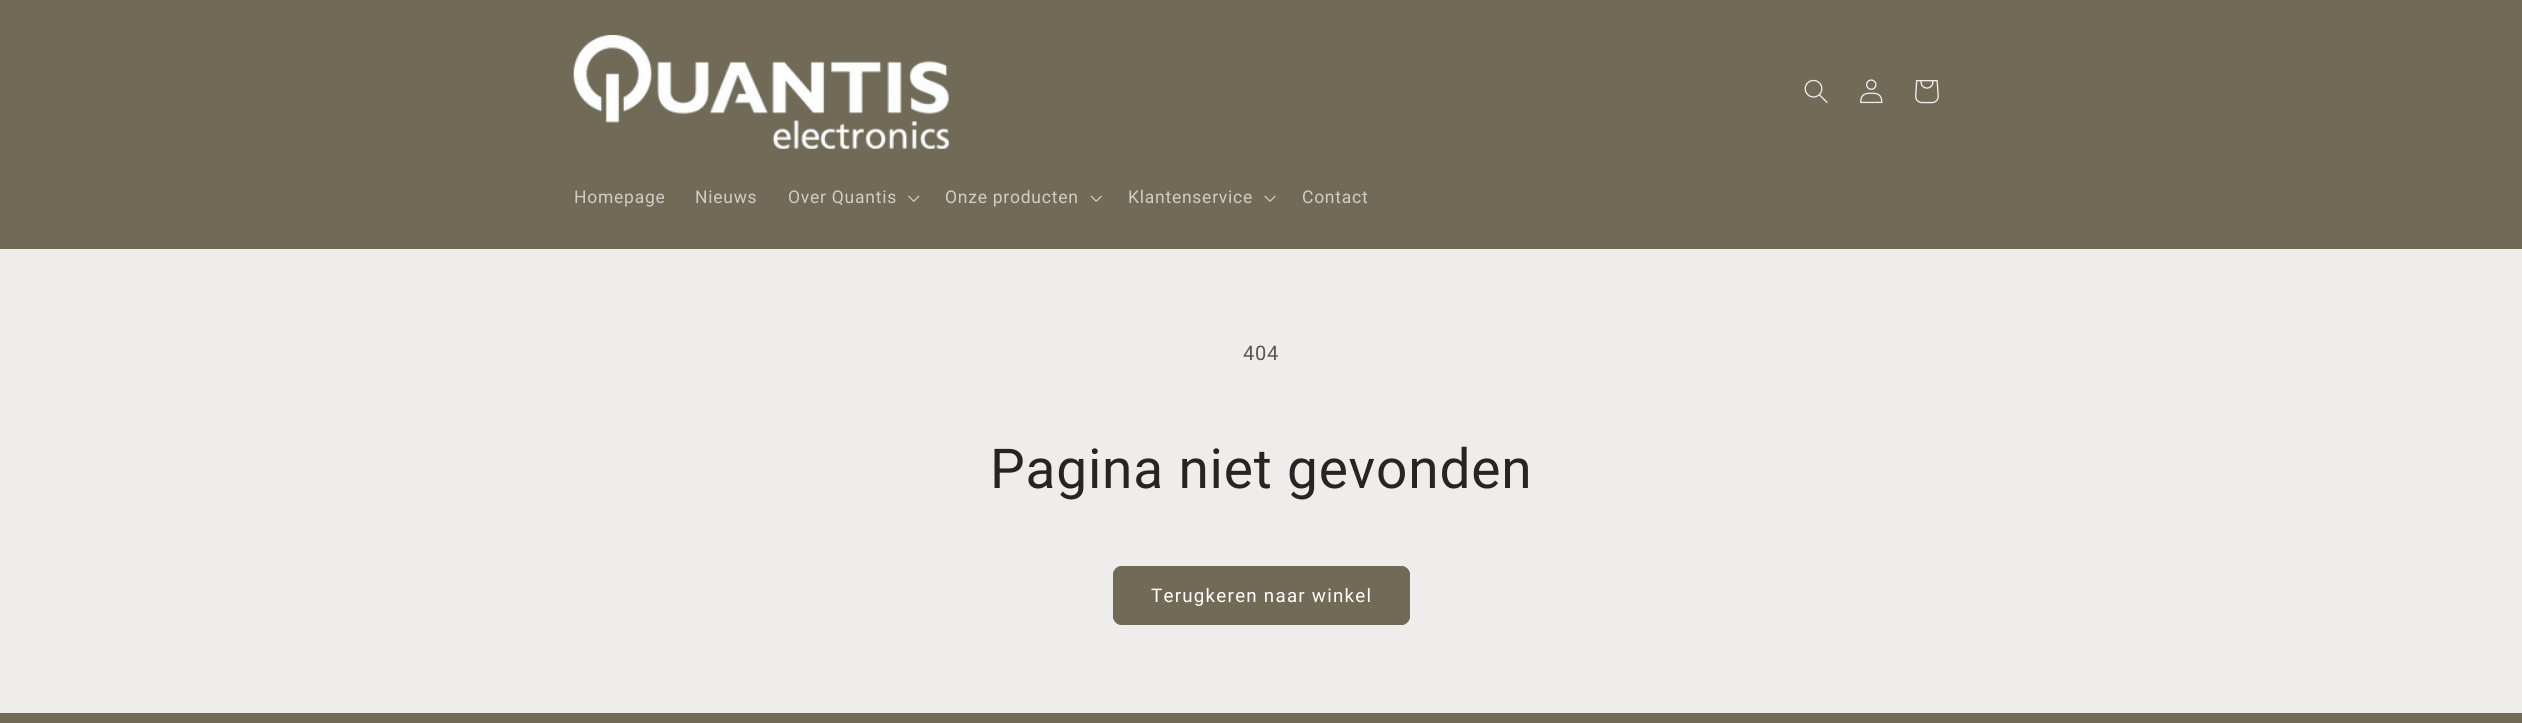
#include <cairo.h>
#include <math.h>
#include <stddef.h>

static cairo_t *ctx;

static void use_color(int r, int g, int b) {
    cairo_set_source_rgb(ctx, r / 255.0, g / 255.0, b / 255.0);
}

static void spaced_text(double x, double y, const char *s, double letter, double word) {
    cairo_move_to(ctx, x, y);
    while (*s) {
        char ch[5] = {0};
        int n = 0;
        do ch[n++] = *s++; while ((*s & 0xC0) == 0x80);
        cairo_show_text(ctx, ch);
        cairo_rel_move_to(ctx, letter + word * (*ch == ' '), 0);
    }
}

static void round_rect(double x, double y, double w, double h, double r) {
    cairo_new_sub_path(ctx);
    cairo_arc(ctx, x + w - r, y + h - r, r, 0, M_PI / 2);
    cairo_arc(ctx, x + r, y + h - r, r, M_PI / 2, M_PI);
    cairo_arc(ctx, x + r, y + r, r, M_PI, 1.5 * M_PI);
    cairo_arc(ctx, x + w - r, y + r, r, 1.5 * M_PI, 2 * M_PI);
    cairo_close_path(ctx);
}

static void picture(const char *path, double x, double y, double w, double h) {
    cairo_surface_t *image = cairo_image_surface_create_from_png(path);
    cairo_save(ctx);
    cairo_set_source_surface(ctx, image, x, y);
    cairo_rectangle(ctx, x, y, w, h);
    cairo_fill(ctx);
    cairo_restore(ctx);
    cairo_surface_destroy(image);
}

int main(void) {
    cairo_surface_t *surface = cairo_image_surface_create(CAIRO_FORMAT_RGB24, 2522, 723);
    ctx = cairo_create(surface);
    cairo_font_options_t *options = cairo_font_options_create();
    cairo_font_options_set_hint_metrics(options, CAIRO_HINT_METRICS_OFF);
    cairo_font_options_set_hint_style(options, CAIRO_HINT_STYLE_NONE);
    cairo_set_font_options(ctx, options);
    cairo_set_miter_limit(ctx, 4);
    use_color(239, 236, 236);
    cairo_paint(ctx);
    use_color(113, 106, 86);
    cairo_rectangle(ctx, 0, 0, 2522, 249);
    cairo_fill(ctx);
    picture("img1.png", 573, 35, 376, 114);
    picture("img2.png", 1804, 79, 24, 24);
    picture("img3.png", 1860, 79, 23, 25);
    picture("img4.png", 1915, 80, 24, 24);
    cairo_select_font_face(ctx, "Roboto", CAIRO_FONT_SLANT_NORMAL, CAIRO_FONT_WEIGHT_NORMAL);
    cairo_set_font_size(ctx, 17.5);
    use_color(208, 204, 199);
    spaced_text(574, 203, "Homepage", 0.75, 0);
    spaced_text(695, 203, "Nieuws", 0.75, 0);
    spaced_text(788, 203, "Over Quantis", 0.75, 0);
    picture("img5.png", 908, 195, 12, 7);
    spaced_text(945, 203, "Onze producten", 0.75, 0);
    picture("img6.png", 1090, 195, 12, 7);
    spaced_text(1128, 203, "Klantenservice", 0.75, 0);
    picture("img7.png", 1264, 195, 12, 7);
    spaced_text(1302, 203, "Contact", 0.75, 0);
    cairo_set_font_size(ctx, 20);
    use_color(88, 87, 87);
    spaced_text(1243, 360, "404", 0.75, 0);
    cairo_set_font_size(ctx, 55);
    use_color(37, 37, 37);
    spaced_text(990, 488, "Pagina niet gevonden", 0.8, 0);
    use_color(113, 106, 86);
    round_rect(1113, 566, 297, 59, 9);
    cairo_fill(ctx);
    round_rect(1113.5, 566.5, 296, 58, 8.5);
    cairo_set_line_width(ctx, 1);
    cairo_stroke(ctx);
    cairo_set_font_size(ctx, 18.75);
    use_color(255, 255, 255);
    spaced_text(1151, 602, "Terugkeren naar winkel", 1.25, 0);
    use_color(113, 106, 86);
    cairo_rectangle(ctx, 0, 713, 2522, 10);
    cairo_fill(ctx);
    cairo_surface_write_to_png(surface, "result.png");
    cairo_font_options_destroy(options);
    cairo_destroy(ctx);
    cairo_surface_destroy(surface);
    return 0;
}
